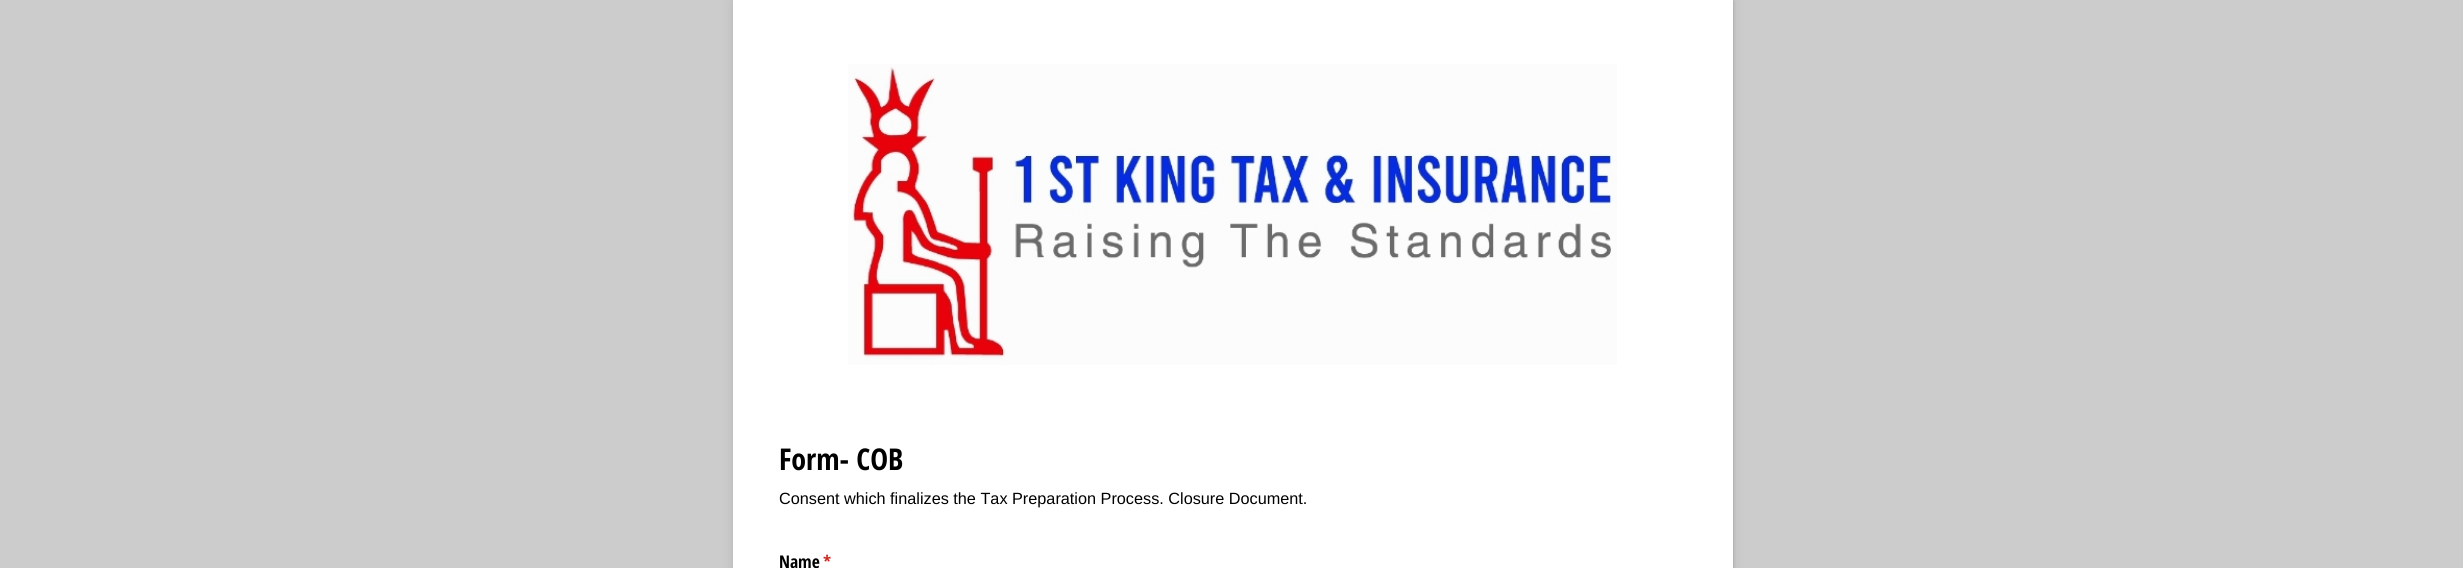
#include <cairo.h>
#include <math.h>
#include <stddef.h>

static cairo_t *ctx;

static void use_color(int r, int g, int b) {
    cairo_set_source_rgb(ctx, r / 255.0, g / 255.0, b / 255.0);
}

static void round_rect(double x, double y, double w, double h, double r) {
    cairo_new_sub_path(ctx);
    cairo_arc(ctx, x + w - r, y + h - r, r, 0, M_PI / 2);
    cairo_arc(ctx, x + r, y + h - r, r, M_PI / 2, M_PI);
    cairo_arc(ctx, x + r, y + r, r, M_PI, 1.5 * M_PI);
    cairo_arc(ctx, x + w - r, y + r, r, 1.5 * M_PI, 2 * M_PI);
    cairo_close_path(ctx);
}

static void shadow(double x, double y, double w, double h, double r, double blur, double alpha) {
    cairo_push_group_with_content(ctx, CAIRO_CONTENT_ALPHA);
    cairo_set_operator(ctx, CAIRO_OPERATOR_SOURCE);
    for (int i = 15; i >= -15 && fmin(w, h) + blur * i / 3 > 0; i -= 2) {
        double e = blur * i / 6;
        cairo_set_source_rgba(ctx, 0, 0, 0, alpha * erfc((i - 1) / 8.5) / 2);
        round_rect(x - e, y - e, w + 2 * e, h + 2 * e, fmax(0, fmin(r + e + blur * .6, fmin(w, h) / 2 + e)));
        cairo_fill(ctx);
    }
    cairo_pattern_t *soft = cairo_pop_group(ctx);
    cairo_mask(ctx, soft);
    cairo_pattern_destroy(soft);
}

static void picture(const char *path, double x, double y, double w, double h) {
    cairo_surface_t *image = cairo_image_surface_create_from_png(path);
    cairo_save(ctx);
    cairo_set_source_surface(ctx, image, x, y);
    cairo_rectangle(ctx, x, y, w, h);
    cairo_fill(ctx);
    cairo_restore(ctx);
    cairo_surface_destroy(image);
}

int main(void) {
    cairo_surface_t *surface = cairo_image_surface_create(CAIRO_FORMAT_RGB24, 2463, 568);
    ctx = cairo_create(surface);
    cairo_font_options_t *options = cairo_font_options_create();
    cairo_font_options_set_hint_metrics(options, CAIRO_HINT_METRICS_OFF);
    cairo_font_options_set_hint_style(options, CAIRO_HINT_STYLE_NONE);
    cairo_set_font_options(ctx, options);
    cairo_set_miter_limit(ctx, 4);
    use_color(204, 204, 204);
    cairo_paint(ctx);
    use_color(0, 0, 0);
    shadow(734, 1, 1000, 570, 0, 1, 0.1);
    shadow(733, 0, 1000, 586, 0, 6, 0.1);
    use_color(255, 255, 255);
    cairo_rectangle(ctx, 733, 0, 1000, 568);
    cairo_fill(ctx);
    picture("img1.png", 848, 64, 769, 301);
    cairo_select_font_face(ctx, "Open Sans Condensed", CAIRO_FONT_SLANT_NORMAL, CAIRO_FONT_WEIGHT_BOLD);
    cairo_set_font_size(ctx, 30);
    use_color(0, 0, 0);
    cairo_move_to(ctx, 779, 470);
    cairo_show_text(ctx, "Form- COB");
    cairo_select_font_face(ctx, "Liberation Sans", CAIRO_FONT_SLANT_NORMAL, CAIRO_FONT_WEIGHT_NORMAL);
    cairo_set_font_size(ctx, 16.25);
    cairo_move_to(ctx, 779, 504);
    cairo_show_text(ctx, "Consent which finalizes the Tax Preparation Process. Closure Document.");
    cairo_select_font_face(ctx, "Open Sans Condensed", CAIRO_FONT_SLANT_NORMAL, CAIRO_FONT_WEIGHT_BOLD);
    cairo_set_font_size(ctx, 17.5);
    cairo_move_to(ctx, 779, 568);
    cairo_show_text(ctx, "Name");
    use_color(204, 42, 36);
    cairo_move_to(ctx, 823, 568);
    cairo_show_text(ctx, "*");
    cairo_surface_write_to_png(surface, "result.png");
    cairo_font_options_destroy(options);
    cairo_destroy(ctx);
    cairo_surface_destroy(surface);
    return 0;
}
